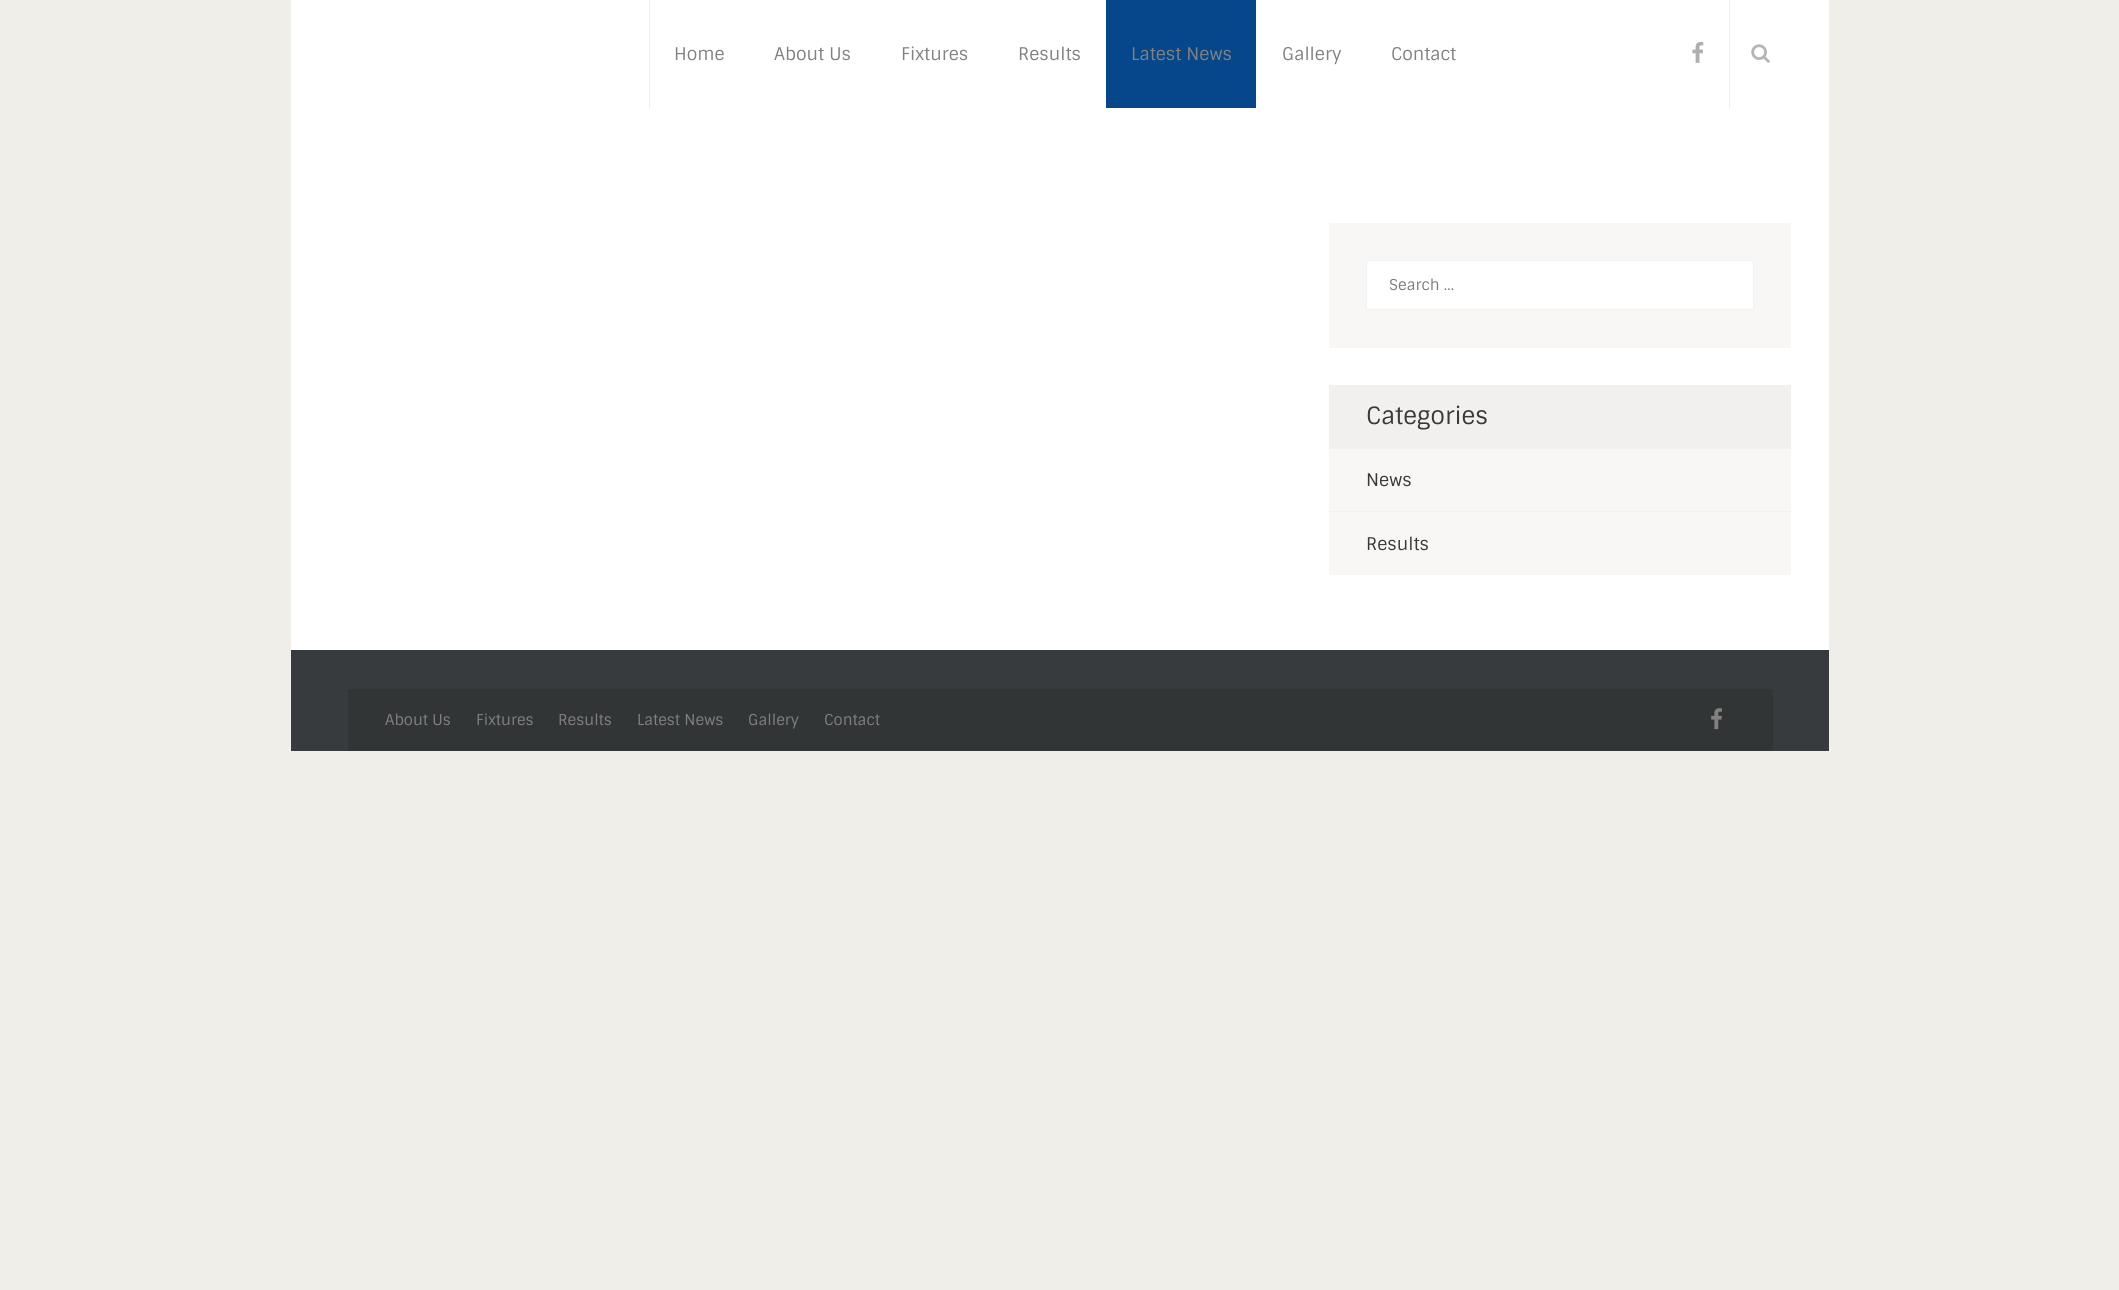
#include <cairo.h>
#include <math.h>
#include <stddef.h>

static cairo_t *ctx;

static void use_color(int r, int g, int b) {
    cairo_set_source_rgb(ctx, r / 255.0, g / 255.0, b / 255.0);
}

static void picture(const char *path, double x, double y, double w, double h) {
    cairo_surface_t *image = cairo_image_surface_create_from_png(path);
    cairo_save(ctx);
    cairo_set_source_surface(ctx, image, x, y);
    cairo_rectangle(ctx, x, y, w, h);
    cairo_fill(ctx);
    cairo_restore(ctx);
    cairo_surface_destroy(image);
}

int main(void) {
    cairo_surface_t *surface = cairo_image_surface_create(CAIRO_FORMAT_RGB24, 2119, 1290);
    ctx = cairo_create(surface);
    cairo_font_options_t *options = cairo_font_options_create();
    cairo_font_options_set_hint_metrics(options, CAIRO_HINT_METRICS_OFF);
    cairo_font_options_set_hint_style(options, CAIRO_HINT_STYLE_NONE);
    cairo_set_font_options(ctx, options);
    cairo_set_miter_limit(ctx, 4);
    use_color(239, 238, 233);
    cairo_paint(ctx);
    use_color(255, 255, 255);
    cairo_rectangle(ctx, 291, 0, 1538, 650);
    cairo_fill(ctx);
    use_color(237, 239, 239);
    cairo_rectangle(ctx, 649, 0, 1, 108);
    cairo_fill(ctx);
    cairo_select_font_face(ctx, "Sintony", CAIRO_FONT_SLANT_NORMAL, CAIRO_FONT_WEIGHT_NORMAL);
    cairo_set_font_size(ctx, 17.5);
    use_color(131, 129, 127);
    cairo_move_to(ctx, 674, 60);
    cairo_show_text(ctx, "Home");
    cairo_move_to(ctx, 774, 60);
    cairo_show_text(ctx, "About Us");
    cairo_move_to(ctx, 901, 60);
    cairo_show_text(ctx, "Fixtures");
    cairo_move_to(ctx, 1018, 60);
    cairo_show_text(ctx, "Results");
    use_color(6, 71, 139);
    cairo_rectangle(ctx, 1106, 0, 150, 108);
    cairo_fill(ctx);
    use_color(131, 129, 127);
    cairo_move_to(ctx, 1131, 60);
    cairo_show_text(ctx, "Latest News");
    cairo_move_to(ctx, 1282, 60);
    cairo_show_text(ctx, "Gallery");
    cairo_move_to(ctx, 1391, 60);
    cairo_show_text(ctx, "Contact");
    picture("img1.png", 1692, 42, 12, 21);
    use_color(237, 239, 239);
    cairo_rectangle(ctx, 1729, 0, 1, 108);
    cairo_fill(ctx);
    picture("img2.png", 1751, 44, 19, 19);
    use_color(248, 247, 245);
    cairo_rectangle(ctx, 1329, 223, 462, 125);
    cairo_fill(ctx);
    use_color(255, 255, 255);
    cairo_rectangle(ctx, 1366.5, 260.5, 387, 49);
    cairo_fill_preserve(ctx);
    use_color(242, 242, 242);
    cairo_set_line_width(ctx, 1);
    cairo_stroke(ctx);
    cairo_set_font_size(ctx, 15);
    use_color(123, 123, 123);
    cairo_move_to(ctx, 1389, 290);
    cairo_show_text(ctx, "Search …");
    use_color(248, 247, 245);
    cairo_rectangle(ctx, 1329, 449, 462, 126);
    cairo_fill(ctx);
    use_color(241, 240, 238);
    cairo_rectangle(ctx, 1329, 385, 462, 64);
    cairo_fill(ctx);
    cairo_set_font_size(ctx, 23.75);
    use_color(57, 57, 57);
    cairo_move_to(ctx, 1366, 424);
    cairo_show_text(ctx, "Categories");
    use_color(241, 240, 238);
    cairo_rectangle(ctx, 1329, 511, 462, 1);
    cairo_fill(ctx);
    cairo_set_font_size(ctx, 17.5);
    use_color(57, 57, 57);
    cairo_move_to(ctx, 1366, 486);
    cairo_show_text(ctx, "News");
    cairo_move_to(ctx, 1366, 550);
    cairo_show_text(ctx, "Results");
    use_color(55, 59, 61);
    cairo_rectangle(ctx, 291, 650, 1538, 101);
    cairo_fill(ctx);
    use_color(49, 53, 54);
    cairo_rectangle(ctx, 348, 689, 1425, 62);
    cairo_fill(ctx);
    cairo_set_font_size(ctx, 15);
    use_color(131, 129, 127);
    cairo_move_to(ctx, 385, 725);
    cairo_show_text(ctx, "About Us");
    cairo_move_to(ctx, 476, 725);
    cairo_show_text(ctx, "Fixtures");
    cairo_move_to(ctx, 558, 725);
    cairo_show_text(ctx, "Results");
    cairo_move_to(ctx, 637, 725);
    cairo_show_text(ctx, "Latest News");
    cairo_move_to(ctx, 748, 725);
    cairo_show_text(ctx, "Gallery");
    cairo_move_to(ctx, 824, 725);
    cairo_show_text(ctx, "Contact");
    picture("img3.png", 1711, 708, 11, 22);
    cairo_surface_write_to_png(surface, "result.png");
    cairo_font_options_destroy(options);
    cairo_destroy(ctx);
    cairo_surface_destroy(surface);
    return 0;
}
